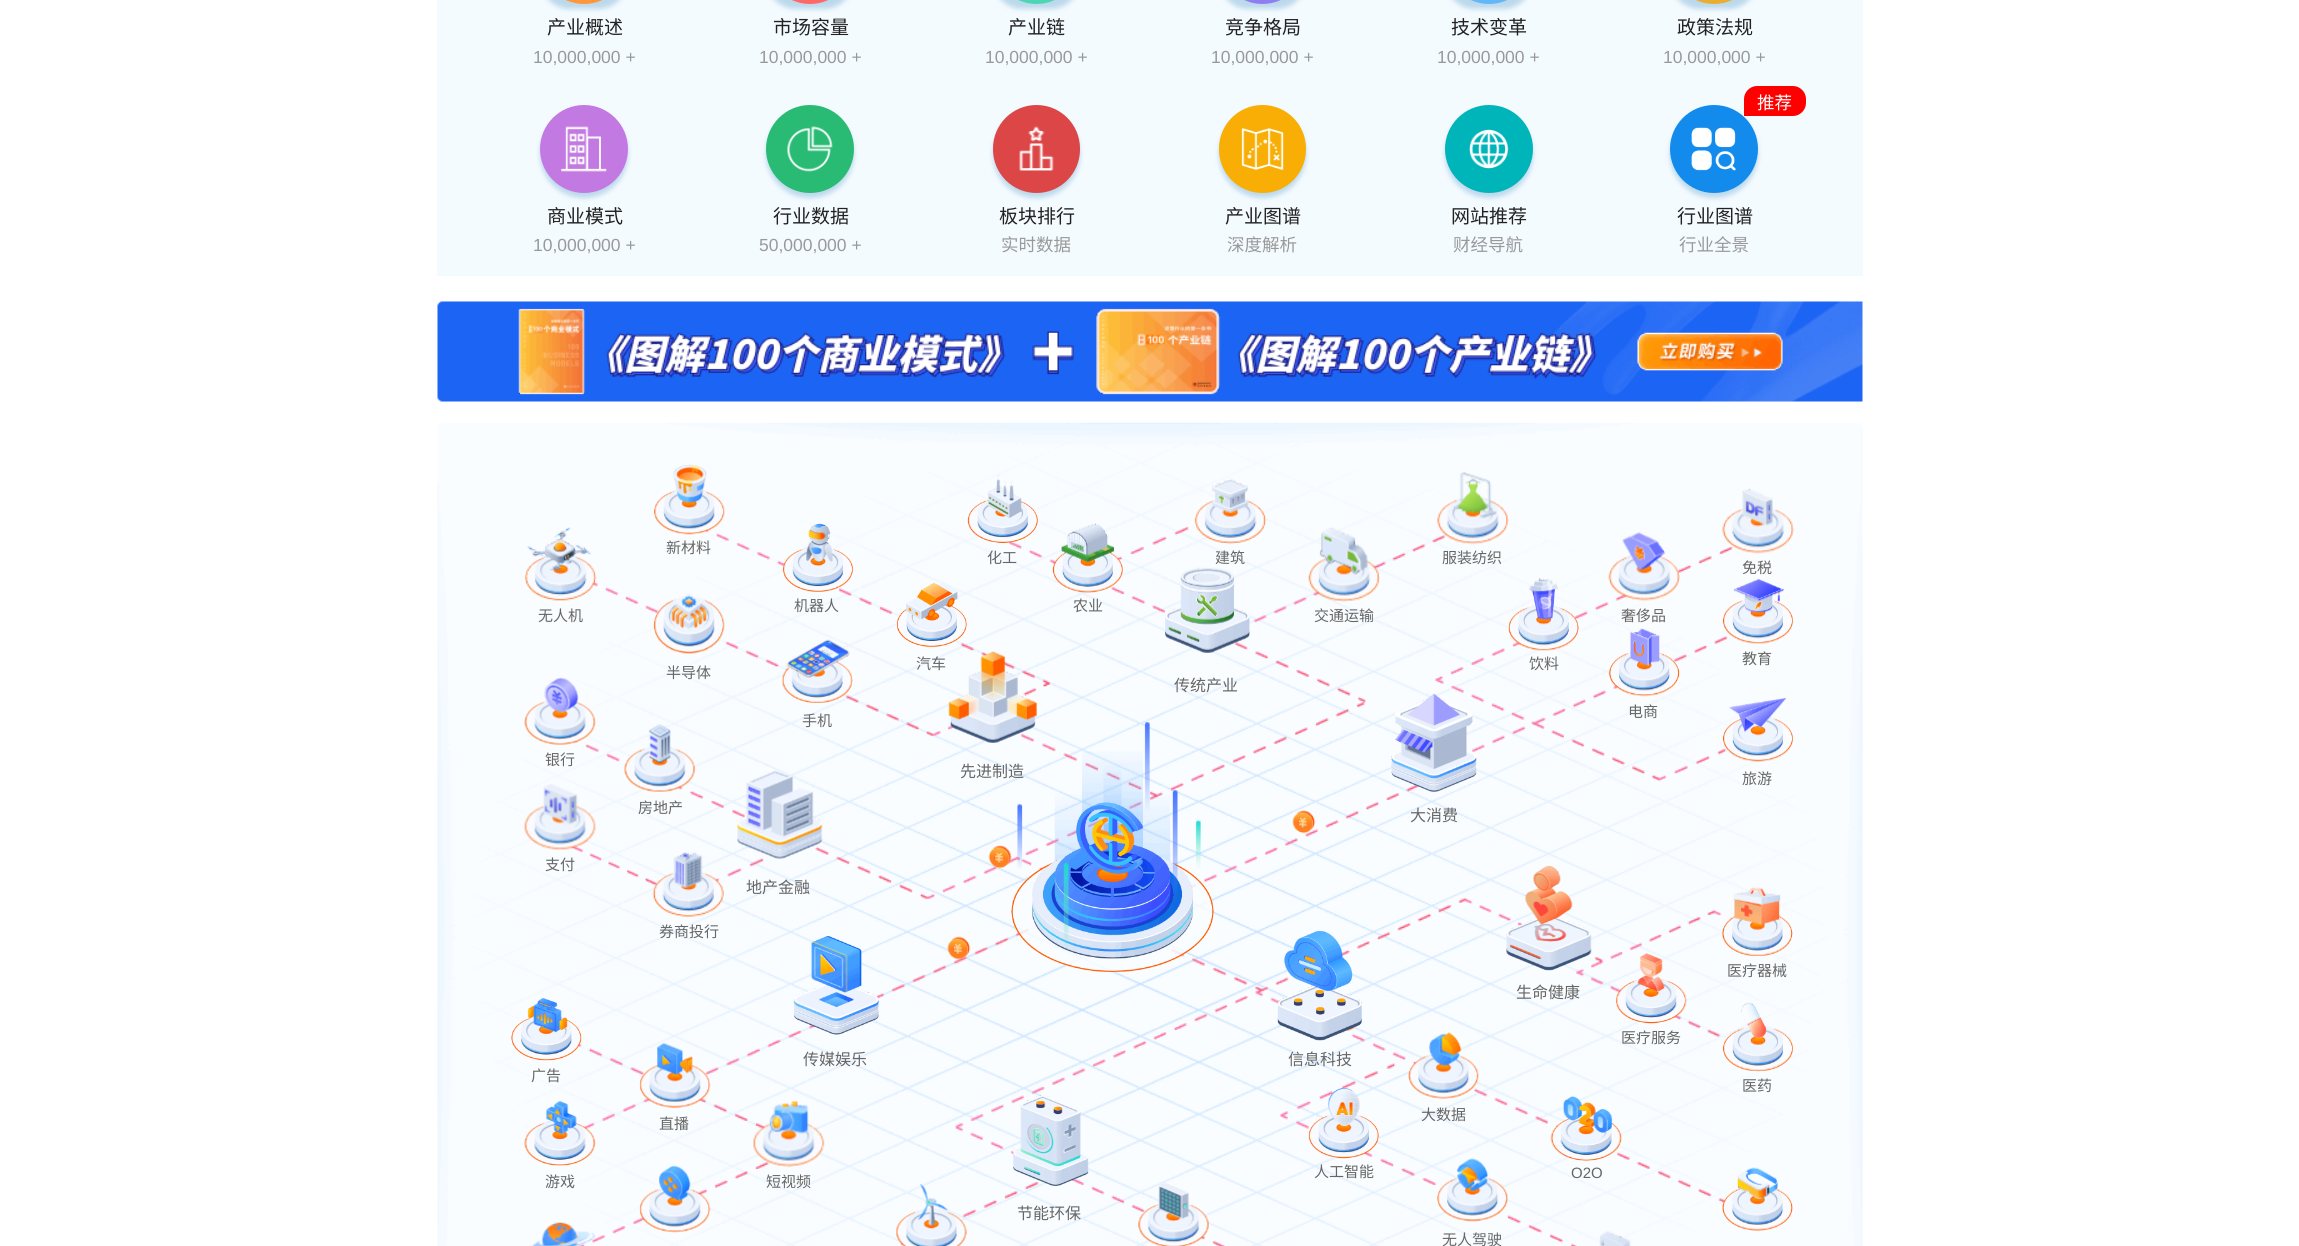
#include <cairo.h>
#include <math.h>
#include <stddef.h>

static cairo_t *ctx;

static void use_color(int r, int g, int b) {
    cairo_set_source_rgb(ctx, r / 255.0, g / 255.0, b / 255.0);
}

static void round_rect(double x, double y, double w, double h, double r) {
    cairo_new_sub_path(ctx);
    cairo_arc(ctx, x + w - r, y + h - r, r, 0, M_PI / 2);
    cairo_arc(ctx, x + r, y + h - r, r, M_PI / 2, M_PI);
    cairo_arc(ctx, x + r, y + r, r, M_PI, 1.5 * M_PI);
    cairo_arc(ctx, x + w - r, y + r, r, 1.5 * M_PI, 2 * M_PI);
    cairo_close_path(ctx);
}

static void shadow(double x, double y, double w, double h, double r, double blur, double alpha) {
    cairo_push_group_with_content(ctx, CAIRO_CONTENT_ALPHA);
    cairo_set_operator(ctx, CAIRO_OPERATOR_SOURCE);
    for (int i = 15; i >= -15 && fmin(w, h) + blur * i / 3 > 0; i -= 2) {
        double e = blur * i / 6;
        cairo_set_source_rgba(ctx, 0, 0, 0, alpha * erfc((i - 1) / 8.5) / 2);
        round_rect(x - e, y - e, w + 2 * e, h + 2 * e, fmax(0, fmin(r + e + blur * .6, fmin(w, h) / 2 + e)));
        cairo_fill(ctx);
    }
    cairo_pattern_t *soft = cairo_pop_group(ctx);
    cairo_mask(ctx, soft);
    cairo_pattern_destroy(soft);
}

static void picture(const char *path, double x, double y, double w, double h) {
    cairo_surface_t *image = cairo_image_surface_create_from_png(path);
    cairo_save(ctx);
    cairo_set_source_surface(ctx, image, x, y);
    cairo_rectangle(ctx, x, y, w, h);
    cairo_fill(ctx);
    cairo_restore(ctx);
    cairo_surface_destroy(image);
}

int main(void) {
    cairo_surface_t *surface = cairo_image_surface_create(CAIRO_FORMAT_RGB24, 2299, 1246);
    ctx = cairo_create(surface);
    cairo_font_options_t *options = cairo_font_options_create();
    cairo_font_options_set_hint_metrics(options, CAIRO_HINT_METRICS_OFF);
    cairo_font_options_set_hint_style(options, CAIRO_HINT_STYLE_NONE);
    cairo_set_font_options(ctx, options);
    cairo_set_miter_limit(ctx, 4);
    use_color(255, 255, 255);
    cairo_paint(ctx);
    use_color(244, 251, 255);
    cairo_rectangle(ctx, 437, 0, 1426, 276);
    cairo_fill(ctx);
    use_color(17, 112, 177);
    shadow(540, -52, 88, 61, 44, 2.5, 0.25);
    use_color(255, 151, 58);
    round_rect(540, -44, 88, 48, 44);
    cairo_fill(ctx);
    cairo_select_font_face(ctx, "Noto Sans CJK SC", CAIRO_FONT_SLANT_NORMAL, CAIRO_FONT_WEIGHT_NORMAL);
    cairo_set_font_size(ctx, 19);
    use_color(34, 34, 34);
    cairo_move_to(ctx, 547, 34);
    cairo_show_text(ctx, "产业概述");
    cairo_select_font_face(ctx, "Liberation Sans", CAIRO_FONT_SLANT_NORMAL, CAIRO_FONT_WEIGHT_NORMAL);
    cairo_set_font_size(ctx, 17.5);
    use_color(153, 153, 153);
    cairo_move_to(ctx, 533, 63);
    cairo_show_text(ctx, "10,000,000 +");
    use_color(17, 112, 177);
    shadow(766, -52, 88, 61, 44, 2.5, 0.25);
    use_color(255, 104, 103);
    round_rect(766, -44, 88, 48, 44);
    cairo_fill(ctx);
    cairo_select_font_face(ctx, "Noto Sans CJK SC", CAIRO_FONT_SLANT_NORMAL, CAIRO_FONT_WEIGHT_NORMAL);
    cairo_set_font_size(ctx, 19);
    use_color(34, 34, 34);
    cairo_move_to(ctx, 773, 34);
    cairo_show_text(ctx, "市场容量");
    cairo_select_font_face(ctx, "Liberation Sans", CAIRO_FONT_SLANT_NORMAL, CAIRO_FONT_WEIGHT_NORMAL);
    cairo_set_font_size(ctx, 17.5);
    use_color(153, 153, 153);
    cairo_move_to(ctx, 759, 63);
    cairo_show_text(ctx, "10,000,000 +");
    use_color(17, 112, 177);
    shadow(993, -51, 87, 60, 43.5, 2.5, 0.25);
    use_color(76, 214, 180);
    round_rect(993, -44, 87, 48, 43.5);
    cairo_fill(ctx);
    cairo_select_font_face(ctx, "Noto Sans CJK SC", CAIRO_FONT_SLANT_NORMAL, CAIRO_FONT_WEIGHT_NORMAL);
    cairo_set_font_size(ctx, 19);
    use_color(34, 34, 34);
    cairo_move_to(ctx, 1008, 34);
    cairo_show_text(ctx, "产业链");
    cairo_select_font_face(ctx, "Liberation Sans", CAIRO_FONT_SLANT_NORMAL, CAIRO_FONT_WEIGHT_NORMAL);
    cairo_set_font_size(ctx, 17.5);
    use_color(153, 153, 153);
    cairo_move_to(ctx, 985, 63);
    cairo_show_text(ctx, "10,000,000 +");
    use_color(17, 112, 177);
    shadow(1219, -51, 87, 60, 43.5, 2.5, 0.25);
    use_color(143, 126, 242);
    round_rect(1219, -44, 87, 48, 43.5);
    cairo_fill(ctx);
    cairo_select_font_face(ctx, "Noto Sans CJK SC", CAIRO_FONT_SLANT_NORMAL, CAIRO_FONT_WEIGHT_NORMAL);
    cairo_set_font_size(ctx, 19);
    use_color(34, 34, 34);
    cairo_move_to(ctx, 1225, 34);
    cairo_show_text(ctx, "竞争格局");
    cairo_select_font_face(ctx, "Liberation Sans", CAIRO_FONT_SLANT_NORMAL, CAIRO_FONT_WEIGHT_NORMAL);
    cairo_set_font_size(ctx, 17.5);
    use_color(153, 153, 153);
    cairo_move_to(ctx, 1211, 63);
    cairo_show_text(ctx, "10,000,000 +");
    use_color(17, 112, 177);
    shadow(1445, -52, 88, 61, 44, 2.5, 0.25);
    use_color(99, 182, 248);
    round_rect(1445, -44, 88, 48, 44);
    cairo_fill(ctx);
    cairo_select_font_face(ctx, "Noto Sans CJK SC", CAIRO_FONT_SLANT_NORMAL, CAIRO_FONT_WEIGHT_NORMAL);
    cairo_set_font_size(ctx, 19);
    use_color(34, 34, 34);
    cairo_move_to(ctx, 1451, 34);
    cairo_show_text(ctx, "技术变革");
    cairo_select_font_face(ctx, "Liberation Sans", CAIRO_FONT_SLANT_NORMAL, CAIRO_FONT_WEIGHT_NORMAL);
    cairo_set_font_size(ctx, 17.5);
    use_color(153, 153, 153);
    cairo_move_to(ctx, 1437, 63);
    cairo_show_text(ctx, "10,000,000 +");
    use_color(17, 112, 177);
    shadow(1670, -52, 88, 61, 44, 2.5, 0.25);
    use_color(233, 174, 48);
    round_rect(1670, -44, 88, 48, 44);
    cairo_fill(ctx);
    cairo_select_font_face(ctx, "Noto Sans CJK SC", CAIRO_FONT_SLANT_NORMAL, CAIRO_FONT_WEIGHT_NORMAL);
    cairo_set_font_size(ctx, 19);
    use_color(34, 34, 34);
    cairo_move_to(ctx, 1677, 34);
    cairo_show_text(ctx, "政策法规");
    cairo_select_font_face(ctx, "Liberation Sans", CAIRO_FONT_SLANT_NORMAL, CAIRO_FONT_WEIGHT_NORMAL);
    cairo_set_font_size(ctx, 17.5);
    use_color(153, 153, 153);
    cairo_move_to(ctx, 1663, 63);
    cairo_show_text(ctx, "10,000,000 +");
    use_color(17, 112, 177);
    shadow(540, 110, 88, 88, 44, 2.5, 0.25);
    use_color(195, 121, 226);
    cairo_arc(ctx, 584, 149, 44, 0, 2 * M_PI);
    cairo_fill(ctx);
    picture("img1.png", 561, 126, 46, 46);
    cairo_select_font_face(ctx, "Noto Sans CJK SC", CAIRO_FONT_SLANT_NORMAL, CAIRO_FONT_WEIGHT_NORMAL);
    cairo_set_font_size(ctx, 19);
    use_color(34, 34, 34);
    cairo_move_to(ctx, 547, 223);
    cairo_show_text(ctx, "商业模式");
    cairo_select_font_face(ctx, "Liberation Sans", CAIRO_FONT_SLANT_NORMAL, CAIRO_FONT_WEIGHT_NORMAL);
    cairo_set_font_size(ctx, 17.5);
    use_color(153, 153, 153);
    cairo_move_to(ctx, 533, 251);
    cairo_show_text(ctx, "10,000,000 +");
    use_color(17, 112, 177);
    shadow(766, 110, 88, 88, 44, 2.5, 0.25);
    use_color(41, 187, 116);
    cairo_arc(ctx, 810, 149, 44, 0, 2 * M_PI);
    cairo_fill(ctx);
    picture("img2.png", 787, 126, 46, 46);
    cairo_select_font_face(ctx, "Noto Sans CJK SC", CAIRO_FONT_SLANT_NORMAL, CAIRO_FONT_WEIGHT_NORMAL);
    cairo_set_font_size(ctx, 19);
    use_color(34, 34, 34);
    cairo_move_to(ctx, 773, 223);
    cairo_show_text(ctx, "行业数据");
    cairo_select_font_face(ctx, "Liberation Sans", CAIRO_FONT_SLANT_NORMAL, CAIRO_FONT_WEIGHT_NORMAL);
    cairo_set_font_size(ctx, 17.5);
    use_color(153, 153, 153);
    cairo_move_to(ctx, 759, 251);
    cairo_show_text(ctx, "50,000,000 +");
    use_color(17, 112, 177);
    shadow(993, 110, 87, 88, 43.5, 2.5, 0.25);
    use_color(220, 70, 70);
    round_rect(993, 105, 87, 88, 43.5);
    cairo_fill(ctx);
    picture("img3.png", 1019, 126, 35, 45);
    cairo_select_font_face(ctx, "Noto Sans CJK SC", CAIRO_FONT_SLANT_NORMAL, CAIRO_FONT_WEIGHT_NORMAL);
    cairo_set_font_size(ctx, 19);
    use_color(34, 34, 34);
    cairo_move_to(ctx, 999, 223);
    cairo_show_text(ctx, "板块排行");
    cairo_set_font_size(ctx, 17.5);
    use_color(153, 153, 153);
    cairo_move_to(ctx, 1001, 251);
    cairo_show_text(ctx, "实时数据");
    use_color(17, 112, 177);
    shadow(1219, 110, 87, 88, 43.5, 2.5, 0.25);
    use_color(248, 174, 4);
    round_rect(1219, 105, 87, 88, 43.5);
    cairo_fill(ctx);
    picture("img4.png", 1241, 128, 43, 42);
    cairo_set_font_size(ctx, 19);
    use_color(34, 34, 34);
    cairo_move_to(ctx, 1225, 223);
    cairo_show_text(ctx, "产业图谱");
    cairo_set_font_size(ctx, 17.5);
    use_color(153, 153, 153);
    cairo_move_to(ctx, 1227, 251);
    cairo_show_text(ctx, "深度解析");
    use_color(17, 112, 177);
    shadow(1445, 110, 88, 88, 44, 2.5, 0.25);
    use_color(0, 181, 185);
    cairo_arc(ctx, 1489, 149, 44, 0, 2 * M_PI);
    cairo_fill(ctx);
    picture("img5.png", 1469, 129, 40, 40);
    cairo_set_font_size(ctx, 19);
    use_color(34, 34, 34);
    cairo_move_to(ctx, 1451, 223);
    cairo_show_text(ctx, "网站推荐");
    cairo_set_font_size(ctx, 17.5);
    use_color(153, 153, 153);
    cairo_move_to(ctx, 1453, 251);
    cairo_show_text(ctx, "财经导航");
    use_color(255, 0, 0);
    cairo_new_path(ctx);
    cairo_move_to(ctx, 1757, 86);
    cairo_line_to(ctx, 1793, 86);
    cairo_curve_to(ctx, 1800, 86, 1806, 92, 1806, 99);
    cairo_line_to(ctx, 1806, 103);
    cairo_curve_to(ctx, 1806, 110, 1800, 116, 1793, 116);
    cairo_line_to(ctx, 1744, 116);
    cairo_line_to(ctx, 1744, 99);
    cairo_curve_to(ctx, 1744, 92, 1750, 86, 1757, 86);
    cairo_close_path(ctx);
    cairo_fill(ctx);
    use_color(17, 112, 177);
    shadow(1670, 110, 88, 88, 44, 2.5, 0.25);
    use_color(18, 139, 237);
    cairo_arc(ctx, 1714, 149, 44, 0, 2 * M_PI);
    cairo_fill(ctx);
    picture("img6.png", 1691, 127, 45, 44);
    use_color(255, 255, 255);
    cairo_move_to(ctx, 1757, 109);
    cairo_show_text(ctx, "推荐");
    cairo_set_font_size(ctx, 19);
    use_color(34, 34, 34);
    cairo_move_to(ctx, 1677, 223);
    cairo_show_text(ctx, "行业图谱");
    cairo_set_font_size(ctx, 17.5);
    use_color(153, 153, 153);
    cairo_move_to(ctx, 1679, 251);
    cairo_show_text(ctx, "行业全景");
    picture("img7.png", 437, 301, 1426, 101);
    picture("img8.png", 518, 308, 1265, 87);
    picture("img9.png", 437, 422, 1426, 824);
    picture("img10.png", 654, 464, 71, 71);
    cairo_set_font_size(ctx, 15);
    use_color(102, 102, 102);
    cairo_move_to(ctx, 666, 553);
    cairo_show_text(ctx, "新材料");
    picture("img11.png", 967, 474, 71, 69);
    cairo_move_to(ctx, 987, 563);
    cairo_show_text(ctx, "化工");
    picture("img12.png", 1194, 478, 73, 67);
    cairo_move_to(ctx, 1215, 563);
    cairo_show_text(ctx, "建筑");
    picture("img13.png", 1437, 472, 72, 73);
    cairo_move_to(ctx, 1442, 563);
    cairo_show_text(ctx, "服装纺织");
    picture("img14.png", 1722, 488, 72, 66);
    cairo_move_to(ctx, 1742, 573);
    cairo_show_text(ctx, "免税");
    picture("img15.png", 783, 523, 70, 69);
    cairo_move_to(ctx, 794, 611);
    cairo_show_text(ctx, "机器人");
    picture("img16.png", 1052, 523, 71, 70);
    cairo_move_to(ctx, 1073, 611);
    cairo_show_text(ctx, "农业");
    picture("img17.png", 524, 527, 73, 74);
    cairo_move_to(ctx, 538, 621);
    cairo_show_text(ctx, "无人机");
    picture("img18.png", 1308, 527, 72, 75);
    cairo_move_to(ctx, 1314, 621);
    cairo_show_text(ctx, "交通运输");
    picture("img19.png", 1608, 532, 73, 69);
    cairo_move_to(ctx, 1621, 621);
    cairo_show_text(ctx, "奢侈品");
    picture("img20.png", 897, 582, 70, 65);
    cairo_move_to(ctx, 916, 669);
    cairo_show_text(ctx, "汽车");
    picture("img21.png", 1508, 578, 71, 73);
    cairo_move_to(ctx, 1529, 669);
    cairo_show_text(ctx, "饮料");
    picture("img22.png", 1723, 578, 70, 66);
    cairo_move_to(ctx, 1742, 664);
    cairo_show_text(ctx, "教育");
    picture("img23.png", 653, 593, 72, 61);
    cairo_move_to(ctx, 666, 678);
    cairo_show_text(ctx, "半导体");
    picture("img24.png", 1165, 567, 85, 86);
    cairo_set_font_size(ctx, 16);
    cairo_move_to(ctx, 1174, 691);
    cairo_show_text(ctx, "传统产业");
    picture("img25.png", 1609, 627, 71, 70);
    cairo_set_font_size(ctx, 15);
    cairo_move_to(ctx, 1628, 717);
    cairo_show_text(ctx, "电商");
    picture("img26.png", 781, 639, 72, 64);
    cairo_move_to(ctx, 802, 726);
    cairo_show_text(ctx, "手机");
    picture("img27.png", 524, 677, 72, 68);
    cairo_move_to(ctx, 545, 765);
    cairo_show_text(ctx, "银行");
    picture("img37.png", 988, 845, 24, 24);
    picture("img29.png", 1011, 751, 203, 221);
    picture("img30.png", 1069, 802, 74, 72);
    picture("img28.png", 1017, 722, 184, 229);
    picture("img31.png", 948, 651, 89, 92);
    cairo_set_font_size(ctx, 16);
    cairo_move_to(ctx, 960, 777);
    cairo_show_text(ctx, "先进制造");
    picture("img32.png", 1723, 697, 70, 65);
    cairo_set_font_size(ctx, 15);
    cairo_move_to(ctx, 1742, 784);
    cairo_show_text(ctx, "旅游");
    picture("img33.png", 624, 724, 72, 68);
    cairo_move_to(ctx, 638, 813);
    cairo_show_text(ctx, "房地产");
    picture("img34.png", 1292, 810, 24, 24);
    picture("img35.png", 1391, 693, 86, 99);
    cairo_set_font_size(ctx, 16);
    cairo_move_to(ctx, 1410, 821);
    cairo_show_text(ctx, "大消费");
    picture("img36.png", 524, 784, 72, 66);
    cairo_set_font_size(ctx, 15);
    cairo_move_to(ctx, 545, 870);
    cairo_show_text(ctx, "支付");
    picture("img38.png", 737, 770, 86, 89);
    cairo_set_font_size(ctx, 16);
    cairo_move_to(ctx, 746, 893);
    cairo_show_text(ctx, "地产金融");
    picture("img39.png", 652, 852, 72, 65);
    cairo_set_font_size(ctx, 15);
    cairo_move_to(ctx, 659, 937);
    cairo_show_text(ctx, "券商投行");
    picture("img40.png", 947, 936, 24, 24);
    picture("img41.png", 1722, 887, 71, 69);
    cairo_move_to(ctx, 1727, 976);
    cairo_show_text(ctx, "医疗器械");
    picture("img42.png", 1506, 866, 86, 105);
    cairo_set_font_size(ctx, 16);
    cairo_move_to(ctx, 1516, 998);
    cairo_show_text(ctx, "生命健康");
    picture("img43.png", 1345, 1026, 12, 5);
    picture("img44.png", 1616, 953, 71, 71);
    cairo_set_font_size(ctx, 15);
    cairo_move_to(ctx, 1621, 1043);
    cairo_show_text(ctx, "医疗服务");
    picture("img45.png", 793, 936, 86, 99);
    cairo_set_font_size(ctx, 16);
    cairo_move_to(ctx, 803, 1065);
    cairo_show_text(ctx, "传媒娱乐");
    picture("img46.png", 1277, 931, 85, 110);
    cairo_move_to(ctx, 1288, 1065);
    cairo_show_text(ctx, "信息科技");
    picture("img47.png", 511, 997, 71, 64);
    cairo_set_font_size(ctx, 15);
    cairo_move_to(ctx, 531, 1081);
    cairo_show_text(ctx, "广告");
    picture("img48.png", 1723, 1002, 70, 70);
    cairo_move_to(ctx, 1742, 1091);
    cairo_show_text(ctx, "医药");
    picture("img49.png", 1408, 1032, 71, 67);
    cairo_move_to(ctx, 1421, 1120);
    cairo_show_text(ctx, "大数据");
    picture("img50.png", 639, 1043, 72, 65);
    cairo_move_to(ctx, 659, 1129);
    cairo_show_text(ctx, "直播");
    picture("img51.png", 524, 1101, 72, 65);
    cairo_move_to(ctx, 545, 1187);
    cairo_show_text(ctx, "游戏");
    picture("img52.png", 639, 1165, 72, 68);
    picture("img53.png", 753, 1100, 72, 68);
    cairo_move_to(ctx, 766, 1187);
    cairo_show_text(ctx, "短视频");
    picture("img54.png", 1308, 1087, 71, 72);
    cairo_move_to(ctx, 1314, 1177);
    cairo_show_text(ctx, "人工智能");
    picture("img55.png", 1550, 1096, 72, 65);
    cairo_select_font_face(ctx, "Liberation Sans", CAIRO_FONT_SLANT_NORMAL, CAIRO_FONT_WEIGHT_NORMAL);
    cairo_move_to(ctx, 1571, 1178);
    cairo_show_text(ctx, "O2O");
    picture("img56.png", 1722, 1167, 71, 64);
    picture("img57.png", 896, 1184, 71, 62);
    picture("img58.png", 1013, 1095, 76, 91);
    cairo_select_font_face(ctx, "Noto Sans CJK SC", CAIRO_FONT_SLANT_NORMAL, CAIRO_FONT_WEIGHT_NORMAL);
    cairo_set_font_size(ctx, 16);
    cairo_move_to(ctx, 1017, 1219);
    cairo_show_text(ctx, "节能环保");
    picture("img59.png", 1138, 1183, 71, 63);
    picture("img60.png", 529, 1222, 67, 24);
    picture("img61.png", 1437, 1158, 71, 64);
    cairo_set_font_size(ctx, 15);
    cairo_move_to(ctx, 1442, 1245);
    cairo_show_text(ctx, "无人驾驶");
    picture("img62.png", 1599, 1231, 32, 15);
    cairo_surface_write_to_png(surface, "result.png");
    cairo_font_options_destroy(options);
    cairo_destroy(ctx);
    cairo_surface_destroy(surface);
    return 0;
}
